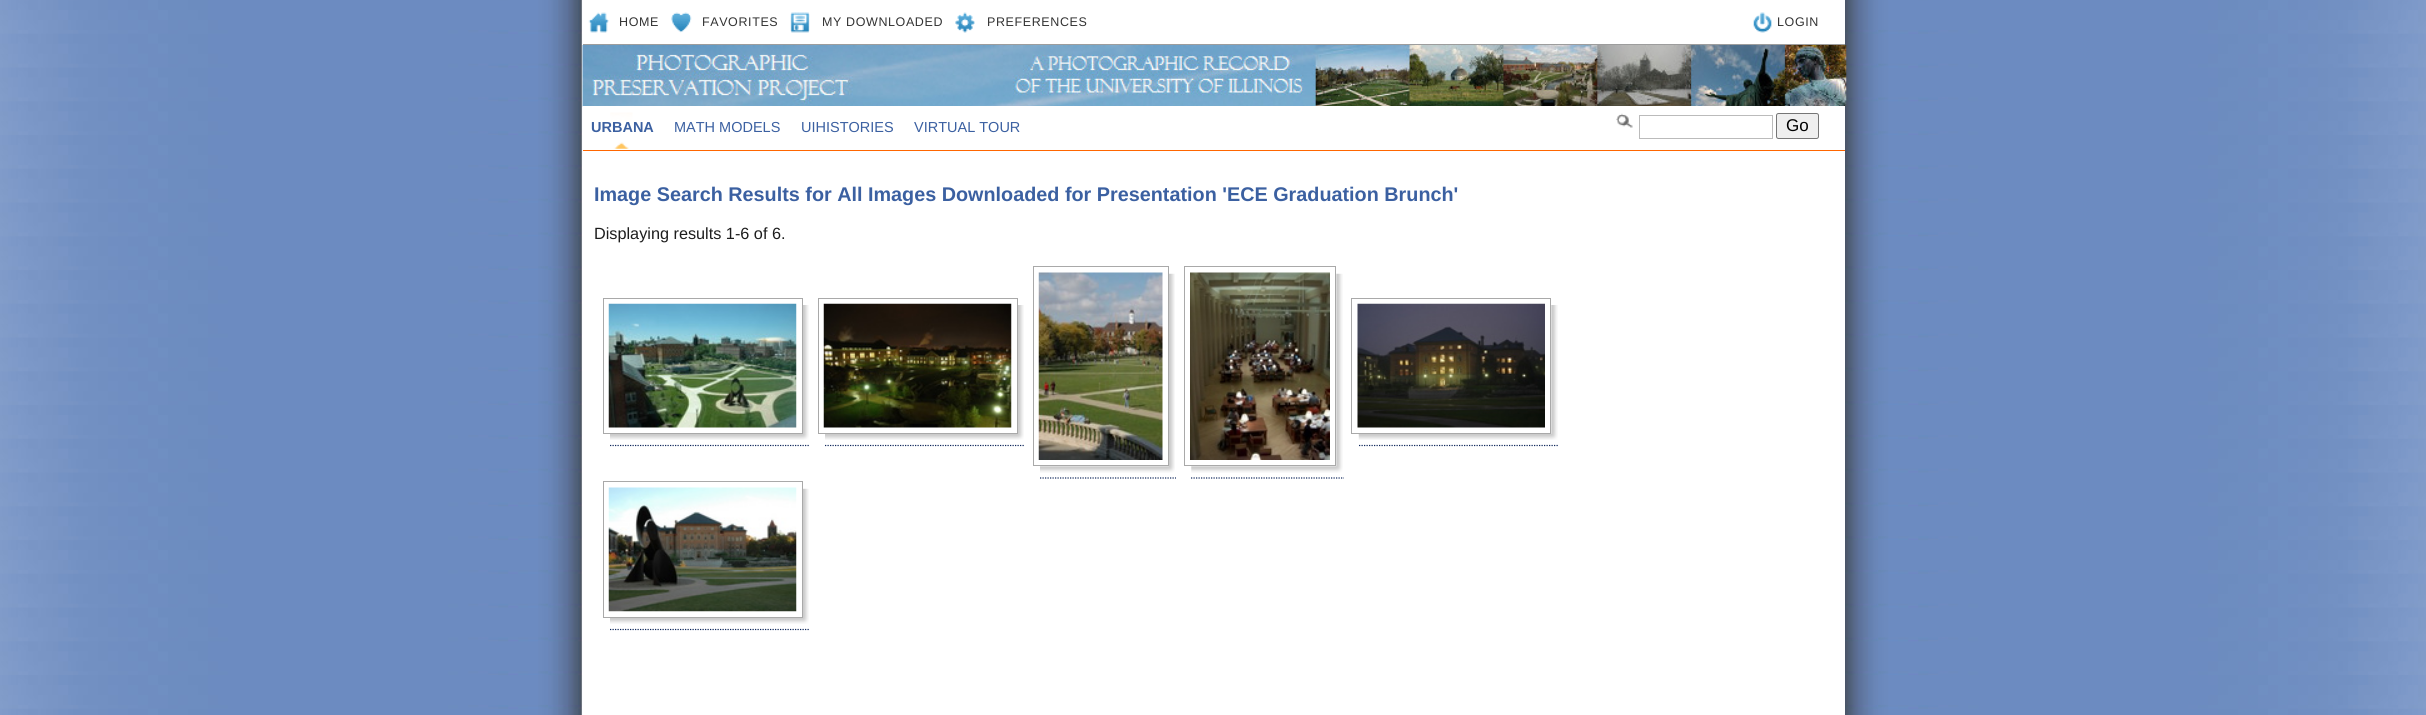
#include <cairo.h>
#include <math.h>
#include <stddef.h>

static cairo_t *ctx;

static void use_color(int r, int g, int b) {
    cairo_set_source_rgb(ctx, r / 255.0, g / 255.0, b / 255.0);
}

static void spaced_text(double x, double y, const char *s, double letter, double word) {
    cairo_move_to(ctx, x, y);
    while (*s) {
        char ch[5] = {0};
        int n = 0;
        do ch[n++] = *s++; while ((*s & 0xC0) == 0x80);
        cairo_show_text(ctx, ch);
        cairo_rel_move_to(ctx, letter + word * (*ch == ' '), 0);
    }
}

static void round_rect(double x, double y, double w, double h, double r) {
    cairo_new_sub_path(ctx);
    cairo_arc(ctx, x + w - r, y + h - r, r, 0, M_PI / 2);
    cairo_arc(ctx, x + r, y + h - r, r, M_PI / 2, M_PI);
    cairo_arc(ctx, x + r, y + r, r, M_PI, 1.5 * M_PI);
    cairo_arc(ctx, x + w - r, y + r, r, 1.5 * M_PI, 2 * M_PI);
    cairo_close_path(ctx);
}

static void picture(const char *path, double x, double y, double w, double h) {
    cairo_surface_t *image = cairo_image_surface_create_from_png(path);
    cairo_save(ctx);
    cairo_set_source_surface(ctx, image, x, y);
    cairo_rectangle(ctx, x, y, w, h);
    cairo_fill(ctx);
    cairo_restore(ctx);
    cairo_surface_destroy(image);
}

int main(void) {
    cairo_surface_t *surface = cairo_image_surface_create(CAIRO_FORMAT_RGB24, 2426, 715);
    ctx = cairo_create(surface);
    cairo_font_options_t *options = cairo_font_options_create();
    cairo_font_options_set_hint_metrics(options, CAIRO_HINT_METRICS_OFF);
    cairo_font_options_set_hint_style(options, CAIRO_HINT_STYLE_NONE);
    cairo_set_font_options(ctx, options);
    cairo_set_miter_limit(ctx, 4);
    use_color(255, 255, 255);
    cairo_paint(ctx);
    picture("img1.png", 0, 0, 2426, 715);
    use_color(255, 255, 255);
    cairo_rectangle(ctx, 583, 0, 1262, 715);
    cairo_fill(ctx);
    use_color(157, 157, 157);
    cairo_rectangle(ctx, 583, 44, 1262, 1);
    cairo_fill(ctx);
    picture("img2.png", 588, 12, 21, 21);
    cairo_select_font_face(ctx, "Liberation Sans", CAIRO_FONT_SLANT_NORMAL, CAIRO_FONT_WEIGHT_NORMAL);
    cairo_set_font_size(ctx, 12.5);
    use_color(51, 51, 51);
    spaced_text(619, 26, "HOME", 0.6, 0);
    picture("img3.png", 671, 12, 21, 21);
    spaced_text(702, 26, "FAVORITES", 0.6, 0);
    picture("img4.png", 790, 12, 20, 21);
    spaced_text(822, 26, "MY DOWNLOADED", 0.6, 0);
    picture("img5.png", 955, 12, 20, 21);
    spaced_text(987, 26, "PREFERENCES", 0.6, 0);
    picture("img6.png", 1753, 12, 19, 21);
    spaced_text(1777, 26, "LOGIN", 0.6, 0);
    picture("img7.png", 582, 45, 1265, 62);
    use_color(255, 255, 255);
    cairo_rectangle(ctx, 583, 106, 1262, 1);
    cairo_fill(ctx);
    use_color(255, 102, 0);
    cairo_rectangle(ctx, 583, 150, 1262, 1);
    cairo_fill(ctx);
    picture("img8.png", 610, 112, 23, 37);
    cairo_select_font_face(ctx, "Liberation Sans", CAIRO_FONT_SLANT_NORMAL, CAIRO_FONT_WEIGHT_BOLD);
    cairo_set_font_size(ctx, 14.5);
    use_color(59, 96, 161);
    cairo_move_to(ctx, 591, 132);
    cairo_show_text(ctx, "URBANA");
    cairo_select_font_face(ctx, "Liberation Sans", CAIRO_FONT_SLANT_NORMAL, CAIRO_FONT_WEIGHT_NORMAL);
    cairo_move_to(ctx, 674, 132);
    cairo_show_text(ctx, "MATH MODELS");
    cairo_move_to(ctx, 801, 132);
    cairo_show_text(ctx, "UIHISTORIES");
    cairo_move_to(ctx, 914, 132);
    cairo_show_text(ctx, "VIRTUAL TOUR");
    cairo_select_font_face(ctx, "Liberation Sans", CAIRO_FONT_SLANT_NORMAL, CAIRO_FONT_WEIGHT_BOLD);
    cairo_set_font_size(ctx, 19.8);
    cairo_move_to(ctx, 594, 201);
    cairo_show_text(ctx, "Image Search Results for All Images Downloaded for Presentation 'ECE Graduation Brunch'");
    cairo_select_font_face(ctx, "Liberation Sans", CAIRO_FONT_SLANT_NORMAL, CAIRO_FONT_WEIGHT_NORMAL);
    cairo_set_font_size(ctx, 16.25);
    use_color(29, 29, 29);
    cairo_move_to(ctx, 594, 239);
    cairo_show_text(ctx, "Displaying results 1-6 of 6.");
    picture("img9.png", 610, 305, 199, 135);
    cairo_rectangle(ctx, 603.5, 298.5, 199, 135);
    use_color(169, 169, 169);
    cairo_set_line_width(ctx, 1);
    cairo_stroke(ctx);
    picture("img10.png", 608, 303, 189, 125);
    cairo_new_path(ctx);
    cairo_move_to(ctx, 610, 445.5);
    cairo_line_to(ctx, 810, 445.5);
    use_color(15, 40, 92);
    cairo_set_line_width(ctx, 1.2);
    cairo_set_dash(ctx, (double[]){1.25, 1.25}, 2, 0);
    cairo_stroke(ctx);
    picture("img11.png", 825, 305, 199, 135);
    cairo_rectangle(ctx, 818.5, 298.5, 199, 135);
    use_color(169, 169, 169);
    cairo_set_line_width(ctx, 1);
    cairo_set_dash(ctx, NULL, 0, 0);
    cairo_stroke(ctx);
    picture("img12.png", 823, 303, 189, 125);
    cairo_new_path(ctx);
    cairo_move_to(ctx, 825, 445.5);
    cairo_line_to(ctx, 1025, 445.5);
    use_color(15, 40, 92);
    cairo_set_line_width(ctx, 1.2);
    cairo_set_dash(ctx, (double[]){1.25, 1.25}, 2, 0);
    cairo_stroke(ctx);
    picture("img13.png", 1040, 273, 135, 200);
    cairo_rectangle(ctx, 1033.5, 266.5, 135, 199);
    use_color(169, 169, 169);
    cairo_set_line_width(ctx, 1);
    cairo_set_dash(ctx, NULL, 0, 0);
    cairo_stroke(ctx);
    picture("img14.png", 1038, 272, 125, 188);
    cairo_new_path(ctx);
    cairo_move_to(ctx, 1040, 478);
    cairo_line_to(ctx, 1176, 478);
    use_color(15, 40, 92);
    cairo_set_line_width(ctx, 1.2);
    cairo_set_dash(ctx, (double[]){1.25, 1.25}, 2, 0);
    cairo_stroke(ctx);
    picture("img15.png", 1191, 273, 152, 200);
    cairo_rectangle(ctx, 1184.5, 266.5, 151, 199);
    use_color(169, 169, 169);
    cairo_set_line_width(ctx, 1);
    cairo_set_dash(ctx, NULL, 0, 0);
    cairo_stroke(ctx);
    picture("img16.png", 1190, 272, 140, 188);
    cairo_new_path(ctx);
    cairo_move_to(ctx, 1191, 478);
    cairo_line_to(ctx, 1344, 478);
    use_color(15, 40, 92);
    cairo_set_line_width(ctx, 1.2);
    cairo_set_dash(ctx, (double[]){1.25, 1.25}, 2, 0);
    cairo_stroke(ctx);
    picture("img17.png", 1358, 305, 200, 135);
    cairo_rectangle(ctx, 1351.5, 298.5, 199, 135);
    use_color(169, 169, 169);
    cairo_set_line_width(ctx, 1);
    cairo_set_dash(ctx, NULL, 0, 0);
    cairo_stroke(ctx);
    picture("img18.png", 1357, 303, 188, 125);
    cairo_new_path(ctx);
    cairo_move_to(ctx, 1359, 445.5);
    cairo_line_to(ctx, 1559, 445.5);
    use_color(15, 40, 92);
    cairo_set_line_width(ctx, 1.2);
    cairo_set_dash(ctx, (double[]){1.25, 1.25}, 2, 0);
    cairo_stroke(ctx);
    picture("img19.png", 610, 488, 199, 136);
    cairo_rectangle(ctx, 603.5, 481.5, 199, 136);
    use_color(169, 169, 169);
    cairo_set_line_width(ctx, 1);
    cairo_set_dash(ctx, NULL, 0, 0);
    cairo_stroke(ctx);
    picture("img20.png", 608, 487, 189, 125);
    cairo_new_path(ctx);
    cairo_move_to(ctx, 610, 629.5);
    cairo_line_to(ctx, 810, 629.5);
    use_color(15, 40, 92);
    cairo_set_line_width(ctx, 1.2);
    cairo_set_dash(ctx, (double[]){1.25, 1.25}, 2, 0);
    cairo_stroke(ctx);
    picture("img21.png", 1616, 113, 17, 15);
    cairo_rectangle(ctx, 1639.5, 115.5, 133, 23);
    use_color(187, 187, 187);
    cairo_set_line_width(ctx, 1);
    cairo_set_dash(ctx, NULL, 0, 0);
    cairo_stroke(ctx);
    use_color(239, 239, 239);
    round_rect(1776.5, 113.5, 42, 25, 2);
    cairo_fill_preserve(ctx);
    use_color(118, 118, 118);
    cairo_stroke(ctx);
    cairo_set_font_size(ctx, 17);
    use_color(0, 0, 0);
    cairo_move_to(ctx, 1786, 131);
    cairo_show_text(ctx, "Go");
    cairo_surface_write_to_png(surface, "result.png");
    cairo_font_options_destroy(options);
    cairo_destroy(ctx);
    cairo_surface_destroy(surface);
    return 0;
}
